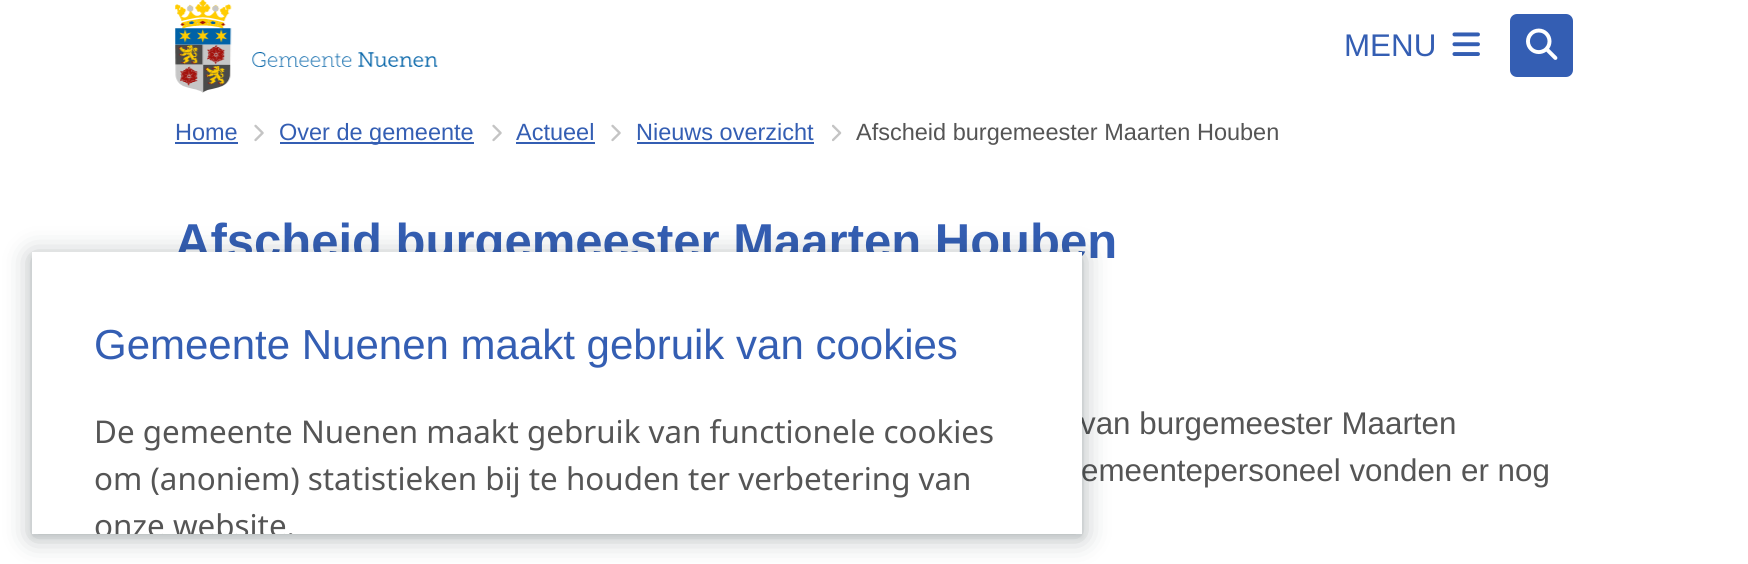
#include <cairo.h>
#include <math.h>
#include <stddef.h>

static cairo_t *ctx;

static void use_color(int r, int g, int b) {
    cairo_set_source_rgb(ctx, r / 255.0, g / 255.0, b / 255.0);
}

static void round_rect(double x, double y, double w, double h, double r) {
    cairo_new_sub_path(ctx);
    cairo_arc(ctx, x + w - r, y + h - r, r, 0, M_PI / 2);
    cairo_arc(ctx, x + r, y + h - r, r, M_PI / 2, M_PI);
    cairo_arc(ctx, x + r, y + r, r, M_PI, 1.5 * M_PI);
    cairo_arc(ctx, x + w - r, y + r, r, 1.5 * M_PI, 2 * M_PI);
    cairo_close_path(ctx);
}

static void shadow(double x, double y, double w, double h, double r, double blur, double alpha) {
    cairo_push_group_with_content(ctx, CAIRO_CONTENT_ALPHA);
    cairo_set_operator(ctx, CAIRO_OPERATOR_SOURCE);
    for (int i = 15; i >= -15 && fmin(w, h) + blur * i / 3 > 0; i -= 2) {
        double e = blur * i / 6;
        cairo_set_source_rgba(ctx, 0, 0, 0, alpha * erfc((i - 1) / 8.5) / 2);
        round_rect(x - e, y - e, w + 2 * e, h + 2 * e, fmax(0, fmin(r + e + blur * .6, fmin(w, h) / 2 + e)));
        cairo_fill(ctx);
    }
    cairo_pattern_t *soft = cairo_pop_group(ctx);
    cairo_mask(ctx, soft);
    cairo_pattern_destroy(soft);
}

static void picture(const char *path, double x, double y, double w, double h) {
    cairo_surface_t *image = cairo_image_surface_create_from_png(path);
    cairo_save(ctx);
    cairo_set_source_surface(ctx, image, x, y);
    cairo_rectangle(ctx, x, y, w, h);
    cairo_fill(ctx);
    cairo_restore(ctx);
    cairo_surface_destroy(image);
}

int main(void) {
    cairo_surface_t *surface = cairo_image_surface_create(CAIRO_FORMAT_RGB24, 1748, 564);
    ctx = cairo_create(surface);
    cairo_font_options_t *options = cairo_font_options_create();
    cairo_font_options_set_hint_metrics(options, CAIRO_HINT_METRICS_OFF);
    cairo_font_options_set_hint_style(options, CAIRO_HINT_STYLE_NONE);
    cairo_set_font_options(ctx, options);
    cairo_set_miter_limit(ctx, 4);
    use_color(255, 255, 255);
    cairo_paint(ctx);
    picture("img1.png", 175, 0, 263, 93);
    cairo_select_font_face(ctx, "Liberation Sans", CAIRO_FONT_SLANT_NORMAL, CAIRO_FONT_WEIGHT_NORMAL);
    cairo_set_font_size(ctx, 31.35);
    use_color(52, 94, 179);
    cairo_move_to(ctx, 1344, 56);
    cairo_show_text(ctx, "MENU");
    picture("img2.png", 1452, 32, 28, 24);
    round_rect(1510, 14, 63, 63, 7);
    cairo_fill(ctx);
    picture("img3.png", 1526, 28, 32, 32);
    cairo_set_font_size(ctx, 23.5);
    cairo_move_to(ctx, 175, 140);
    cairo_show_text(ctx, "Home");
    cairo_rectangle(ctx, 175, 142, 63, 2);
    cairo_fill(ctx);
    picture("img4.png", 254, 124, 10, 18);
    cairo_rectangle(ctx, 280, 142, 194, 2);
    cairo_fill(ctx);
    cairo_move_to(ctx, 279, 140);
    cairo_show_text(ctx, "Over de gemeente");
    picture("img4.png", 492, 124, 10, 18);
    cairo_move_to(ctx, 516, 140);
    cairo_show_text(ctx, "Actueel");
    cairo_rectangle(ctx, 516, 142, 79, 2);
    cairo_fill(ctx);
    picture("img4.png", 611, 124, 10, 18);
    cairo_move_to(ctx, 636, 140);
    cairo_show_text(ctx, "Nieuws overzicht");
    cairo_rectangle(ctx, 637, 142, 177, 2);
    cairo_fill(ctx);
    picture("img5.png", 832, 124, 10, 18);
    use_color(85, 85, 85);
    cairo_move_to(ctx, 856, 140);
    cairo_show_text(ctx, "Afscheid burgemeester Maarten Houben");
    cairo_select_font_face(ctx, "Liberation Sans", CAIRO_FONT_SLANT_NORMAL, CAIRO_FONT_WEIGHT_BOLD);
    cairo_set_font_size(ctx, 49);
    use_color(52, 94, 179);
    cairo_move_to(ctx, 175, 258);
    cairo_show_text(ctx, "Afscheid burgemeester Maarten Houben");
    cairo_select_font_face(ctx, "Liberation Sans", CAIRO_FONT_SLANT_NORMAL, CAIRO_FONT_WEIGHT_NORMAL);
    cairo_set_font_size(ctx, 31.35);
    use_color(85, 85, 85);
    cairo_move_to(ctx, 1080, 434);
    cairo_show_text(ctx, "van burgemeester Maarten");
    cairo_move_to(ctx, 1081, 481);
    cairo_show_text(ctx, "emeentepersoneel vonden er nog");
    use_color(14, 30, 37);
    shadow(32, 256, 1050, 281, 0, 14, 0.32);
    shadow(32, 256, 1050, 281, 0, 3.5, 0.12);
    use_color(255, 255, 255);
    cairo_rectangle(ctx, 32, 252, 1050, 282);
    cairo_fill(ctx);
    cairo_set_font_size(ctx, 42);
    use_color(52, 94, 179);
    cairo_move_to(ctx, 94, 359);
    cairo_show_text(ctx, "Gemeente Nuenen maakt gebruik van cookies");
    cairo_select_font_face(ctx, "Noto Sans", CAIRO_FONT_SLANT_NORMAL, CAIRO_FONT_WEIGHT_NORMAL);
    cairo_set_font_size(ctx, 31.35);
    use_color(85, 85, 85);
    cairo_move_to(ctx, 94, 443);
    cairo_show_text(ctx, "De gemeente Nuenen maakt gebruik van functionele cookies");
    cairo_move_to(ctx, 94, 490);
    cairo_show_text(ctx, "om (anoniem) statistieken bij te houden ter verbetering van");
    cairo_save(ctx);
    cairo_rectangle(ctx, 32, 252, 1050, 282);
    cairo_clip(ctx);
    cairo_move_to(ctx, 94, 537);
    cairo_show_text(ctx, "onze website.");
    cairo_restore(ctx);
    cairo_surface_write_to_png(surface, "result.png");
    cairo_font_options_destroy(options);
    cairo_destroy(ctx);
    cairo_surface_destroy(surface);
    return 0;
}
